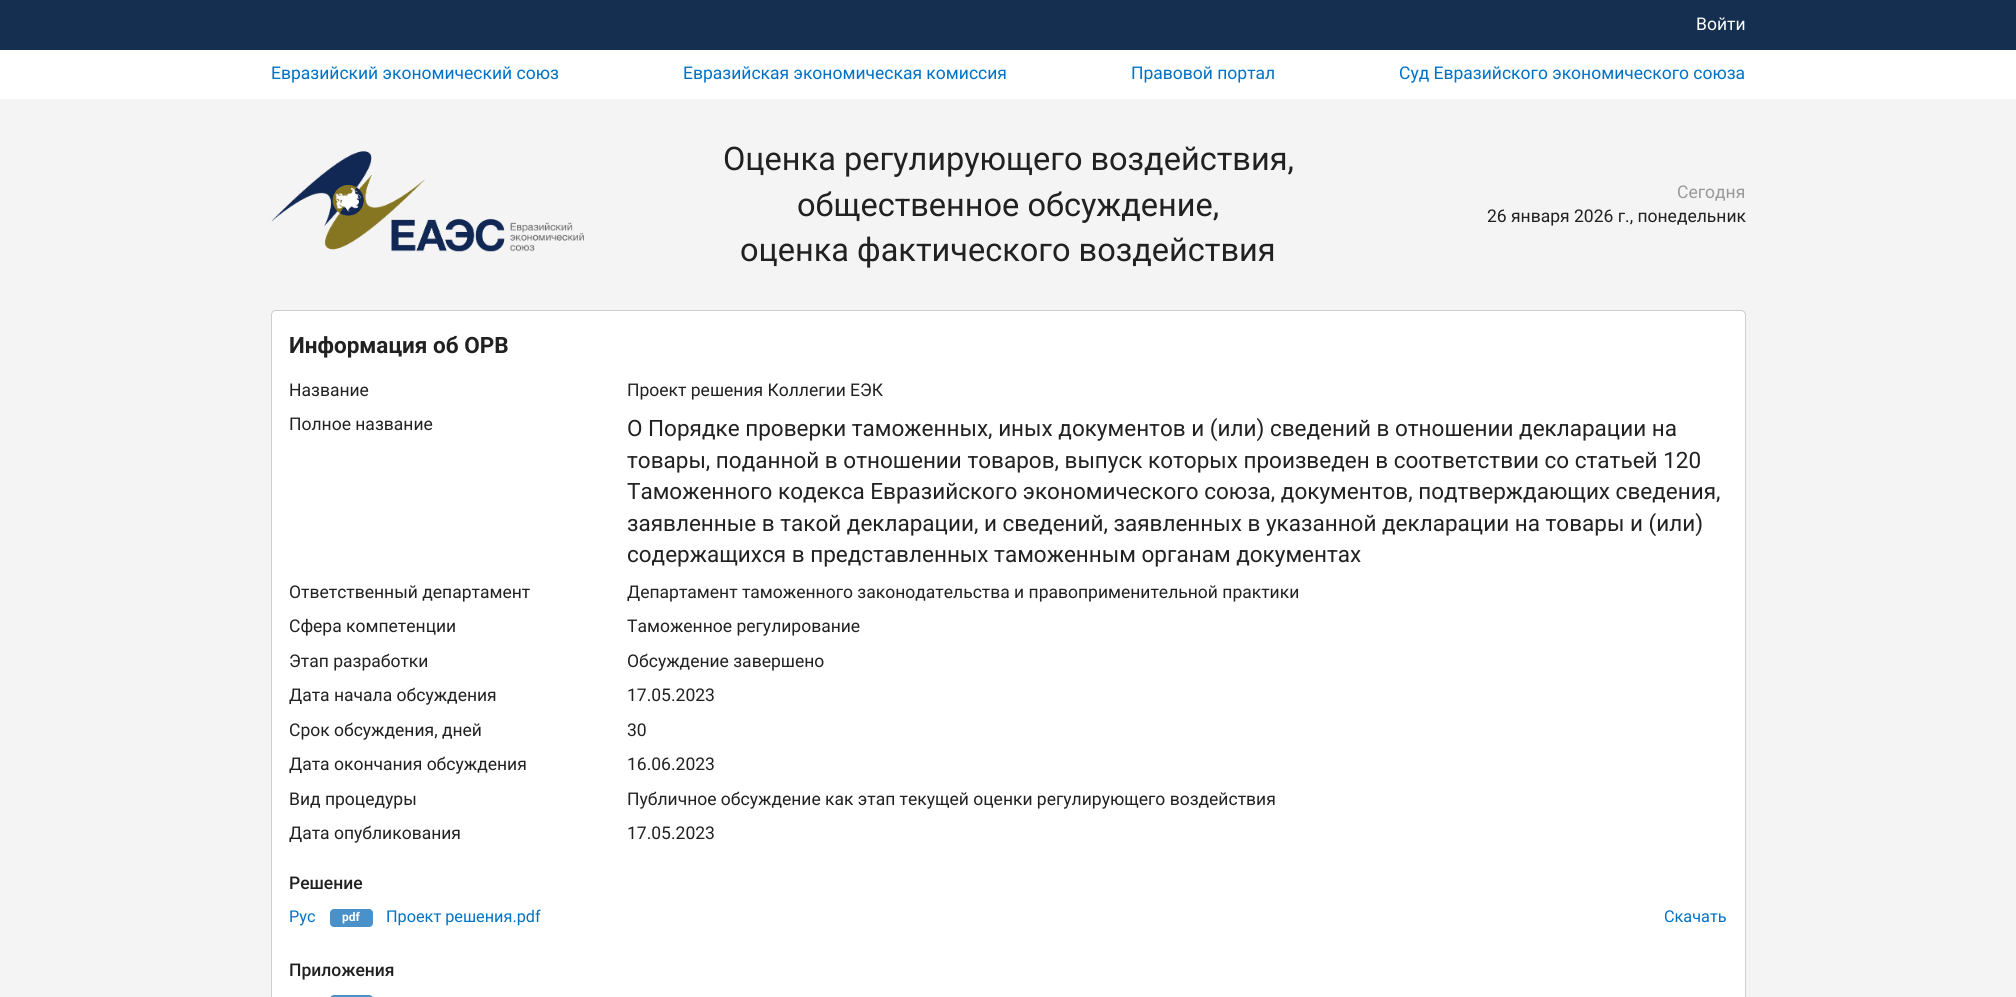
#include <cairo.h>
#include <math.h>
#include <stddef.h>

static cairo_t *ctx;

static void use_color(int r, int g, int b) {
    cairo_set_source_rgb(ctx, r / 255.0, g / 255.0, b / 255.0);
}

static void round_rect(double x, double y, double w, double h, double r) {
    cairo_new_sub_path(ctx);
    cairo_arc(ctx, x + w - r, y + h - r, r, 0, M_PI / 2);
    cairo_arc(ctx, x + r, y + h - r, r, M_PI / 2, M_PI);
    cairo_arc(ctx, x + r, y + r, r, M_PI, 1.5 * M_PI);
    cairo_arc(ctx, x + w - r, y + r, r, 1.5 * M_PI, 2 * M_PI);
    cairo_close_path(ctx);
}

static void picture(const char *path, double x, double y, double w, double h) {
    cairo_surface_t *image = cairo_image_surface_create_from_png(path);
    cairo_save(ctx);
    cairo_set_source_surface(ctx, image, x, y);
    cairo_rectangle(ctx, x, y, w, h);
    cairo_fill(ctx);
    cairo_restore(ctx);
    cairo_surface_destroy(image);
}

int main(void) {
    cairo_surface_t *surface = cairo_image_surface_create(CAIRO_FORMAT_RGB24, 2016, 997);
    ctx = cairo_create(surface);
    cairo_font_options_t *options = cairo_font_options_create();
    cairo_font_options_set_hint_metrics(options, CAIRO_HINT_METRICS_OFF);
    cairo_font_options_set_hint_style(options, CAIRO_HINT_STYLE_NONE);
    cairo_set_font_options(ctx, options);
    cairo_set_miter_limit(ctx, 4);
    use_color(244, 244, 244);
    cairo_paint(ctx);
    use_color(21, 47, 80);
    cairo_rectangle(ctx, 0, 0, 2016, 50);
    cairo_fill(ctx);
    cairo_select_font_face(ctx, "Roboto", CAIRO_FONT_SLANT_NORMAL, CAIRO_FONT_WEIGHT_NORMAL);
    cairo_set_font_size(ctx, 17.5);
    use_color(255, 255, 255);
    cairo_move_to(ctx, 1696, 30);
    cairo_show_text(ctx, "Войти");
    cairo_rectangle(ctx, 0, 50, 2016, 49);
    cairo_fill(ctx);
    use_color(0, 114, 198);
    cairo_move_to(ctx, 271, 79);
    cairo_show_text(ctx, "Евразийский экономический союз");
    cairo_move_to(ctx, 683, 79);
    cairo_show_text(ctx, "Евразийская экономическая комиссия");
    cairo_move_to(ctx, 1131, 79);
    cairo_show_text(ctx, "Правовой портал");
    cairo_move_to(ctx, 1399, 79);
    cairo_show_text(ctx, "Суд Евразийского экономического союза");
    picture("img1.png", 271, 151, 313, 101);
    cairo_set_font_size(ctx, 32.5);
    use_color(32, 33, 32);
    cairo_move_to(ctx, 723, 170);
    cairo_show_text(ctx, "Оценка регулирующего воздействия,");
    cairo_move_to(ctx, 797, 216);
    cairo_show_text(ctx, "общественное обсуждение,");
    cairo_move_to(ctx, 740, 261);
    cairo_show_text(ctx, "оценка фактического воздействия");
    cairo_set_font_size(ctx, 17.5);
    use_color(153, 153, 153);
    cairo_move_to(ctx, 1677, 198);
    cairo_show_text(ctx, "Сегодня");
    use_color(32, 33, 32);
    cairo_move_to(ctx, 1487, 222);
    cairo_show_text(ctx, "26 января 2026 г., понедельник");
    use_color(255, 255, 255);
    round_rect(271.5, 310.5, 1474, 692, 4.5);
    cairo_fill_preserve(ctx);
    use_color(205, 205, 205);
    cairo_set_line_width(ctx, 1);
    cairo_stroke(ctx);
    cairo_select_font_face(ctx, "Roboto", CAIRO_FONT_SLANT_NORMAL, CAIRO_FONT_WEIGHT_BOLD);
    cairo_set_font_size(ctx, 22.5);
    use_color(32, 33, 32);
    cairo_move_to(ctx, 289, 353);
    cairo_show_text(ctx, "Информация об ОРВ");
    cairo_select_font_face(ctx, "Roboto", CAIRO_FONT_SLANT_NORMAL, CAIRO_FONT_WEIGHT_NORMAL);
    cairo_set_font_size(ctx, 17.5);
    cairo_move_to(ctx, 289, 396);
    cairo_show_text(ctx, "Название");
    cairo_move_to(ctx, 627, 396);
    cairo_show_text(ctx, "Проект решения Коллегии ЕЭК");
    cairo_move_to(ctx, 289, 430);
    cairo_show_text(ctx, "Полное название");
    cairo_set_font_size(ctx, 22.5);
    cairo_move_to(ctx, 627, 436);
    cairo_show_text(ctx, "О Порядке проверки таможенных, иных документов и (или) сведений в отношении декларации на");
    cairo_move_to(ctx, 627, 468);
    cairo_show_text(ctx, "товары, поданной в отношении товаров, выпуск которых произведен в соответствии со статьей 120");
    cairo_move_to(ctx, 627, 499);
    cairo_show_text(ctx, "Таможенного кодекса Евразийского экономического союза, документов, подтверждающих сведения,");
    cairo_move_to(ctx, 627, 531);
    cairo_show_text(ctx, "заявленные в такой декларации, и сведений, заявленных в указанной декларации на товары и (или)");
    cairo_move_to(ctx, 627, 562);
    cairo_show_text(ctx, "содержащихся в представленных таможенным органам документах");
    cairo_set_font_size(ctx, 17.5);
    cairo_move_to(ctx, 289, 598);
    cairo_show_text(ctx, "Ответственный департамент");
    cairo_move_to(ctx, 627, 598);
    cairo_show_text(ctx, "Департамент таможенного законодательства и правоприменительной практики");
    cairo_move_to(ctx, 289, 632);
    cairo_show_text(ctx, "Сфера компетенции");
    cairo_move_to(ctx, 627, 632);
    cairo_show_text(ctx, "Таможенное регулирование");
    cairo_move_to(ctx, 289, 667);
    cairo_show_text(ctx, "Этап разработки");
    cairo_move_to(ctx, 627, 667);
    cairo_show_text(ctx, "Обсуждение завершено");
    cairo_move_to(ctx, 289, 701);
    cairo_show_text(ctx, "Дата начала обсуждения");
    cairo_move_to(ctx, 627, 701);
    cairo_show_text(ctx, "17.05.2023");
    cairo_move_to(ctx, 289, 736);
    cairo_show_text(ctx, "Срок обсуждения, дней");
    cairo_move_to(ctx, 627, 736);
    cairo_show_text(ctx, "30");
    cairo_move_to(ctx, 289, 770);
    cairo_show_text(ctx, "Дата окончания обсуждения");
    cairo_move_to(ctx, 627, 770);
    cairo_show_text(ctx, "16.06.2023");
    cairo_move_to(ctx, 289, 805);
    cairo_show_text(ctx, "Вид процедуры");
    cairo_move_to(ctx, 627, 805);
    cairo_show_text(ctx, "Публичное обсуждение как этап текущей оценки регулирующего воздействия");
    cairo_move_to(ctx, 289, 839);
    cairo_show_text(ctx, "Дата опубликования");
    cairo_move_to(ctx, 627, 839);
    cairo_show_text(ctx, "17.05.2023");
    cairo_select_font_face(ctx, "Roboto Medium", CAIRO_FONT_SLANT_NORMAL, CAIRO_FONT_WEIGHT_NORMAL);
    cairo_move_to(ctx, 289, 889);
    cairo_show_text(ctx, "Решение");
    cairo_select_font_face(ctx, "Roboto", CAIRO_FONT_SLANT_NORMAL, CAIRO_FONT_WEIGHT_NORMAL);
    cairo_set_font_size(ctx, 16.25);
    use_color(0, 114, 198);
    cairo_move_to(ctx, 289, 922);
    cairo_show_text(ctx, "Рус");
    use_color(74, 145, 202);
    round_rect(329.5, 908.5, 44, 19, 4.5);
    cairo_fill_preserve(ctx);
    use_color(255, 255, 255);
    cairo_stroke(ctx);
    cairo_select_font_face(ctx, "Roboto", CAIRO_FONT_SLANT_NORMAL, CAIRO_FONT_WEIGHT_BOLD);
    cairo_set_font_size(ctx, 12);
    cairo_move_to(ctx, 342, 921);
    cairo_show_text(ctx, "pdf");
    cairo_select_font_face(ctx, "Roboto", CAIRO_FONT_SLANT_NORMAL, CAIRO_FONT_WEIGHT_NORMAL);
    cairo_set_font_size(ctx, 16.25);
    use_color(0, 114, 198);
    cairo_move_to(ctx, 386, 922);
    cairo_show_text(ctx, "Проект решения.pdf");
    cairo_move_to(ctx, 1664, 922);
    cairo_show_text(ctx, "Скачать");
    cairo_select_font_face(ctx, "Roboto Medium", CAIRO_FONT_SLANT_NORMAL, CAIRO_FONT_WEIGHT_NORMAL);
    cairo_set_font_size(ctx, 17.5);
    use_color(32, 33, 32);
    cairo_move_to(ctx, 289, 976);
    cairo_show_text(ctx, "Приложения");
    use_color(74, 145, 202);
    round_rect(329.5, 994.5, 44, 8, 4.5);
    cairo_fill_preserve(ctx);
    use_color(255, 255, 255);
    cairo_stroke(ctx);
    cairo_surface_write_to_png(surface, "result.png");
    cairo_font_options_destroy(options);
    cairo_destroy(ctx);
    cairo_surface_destroy(surface);
    return 0;
}
